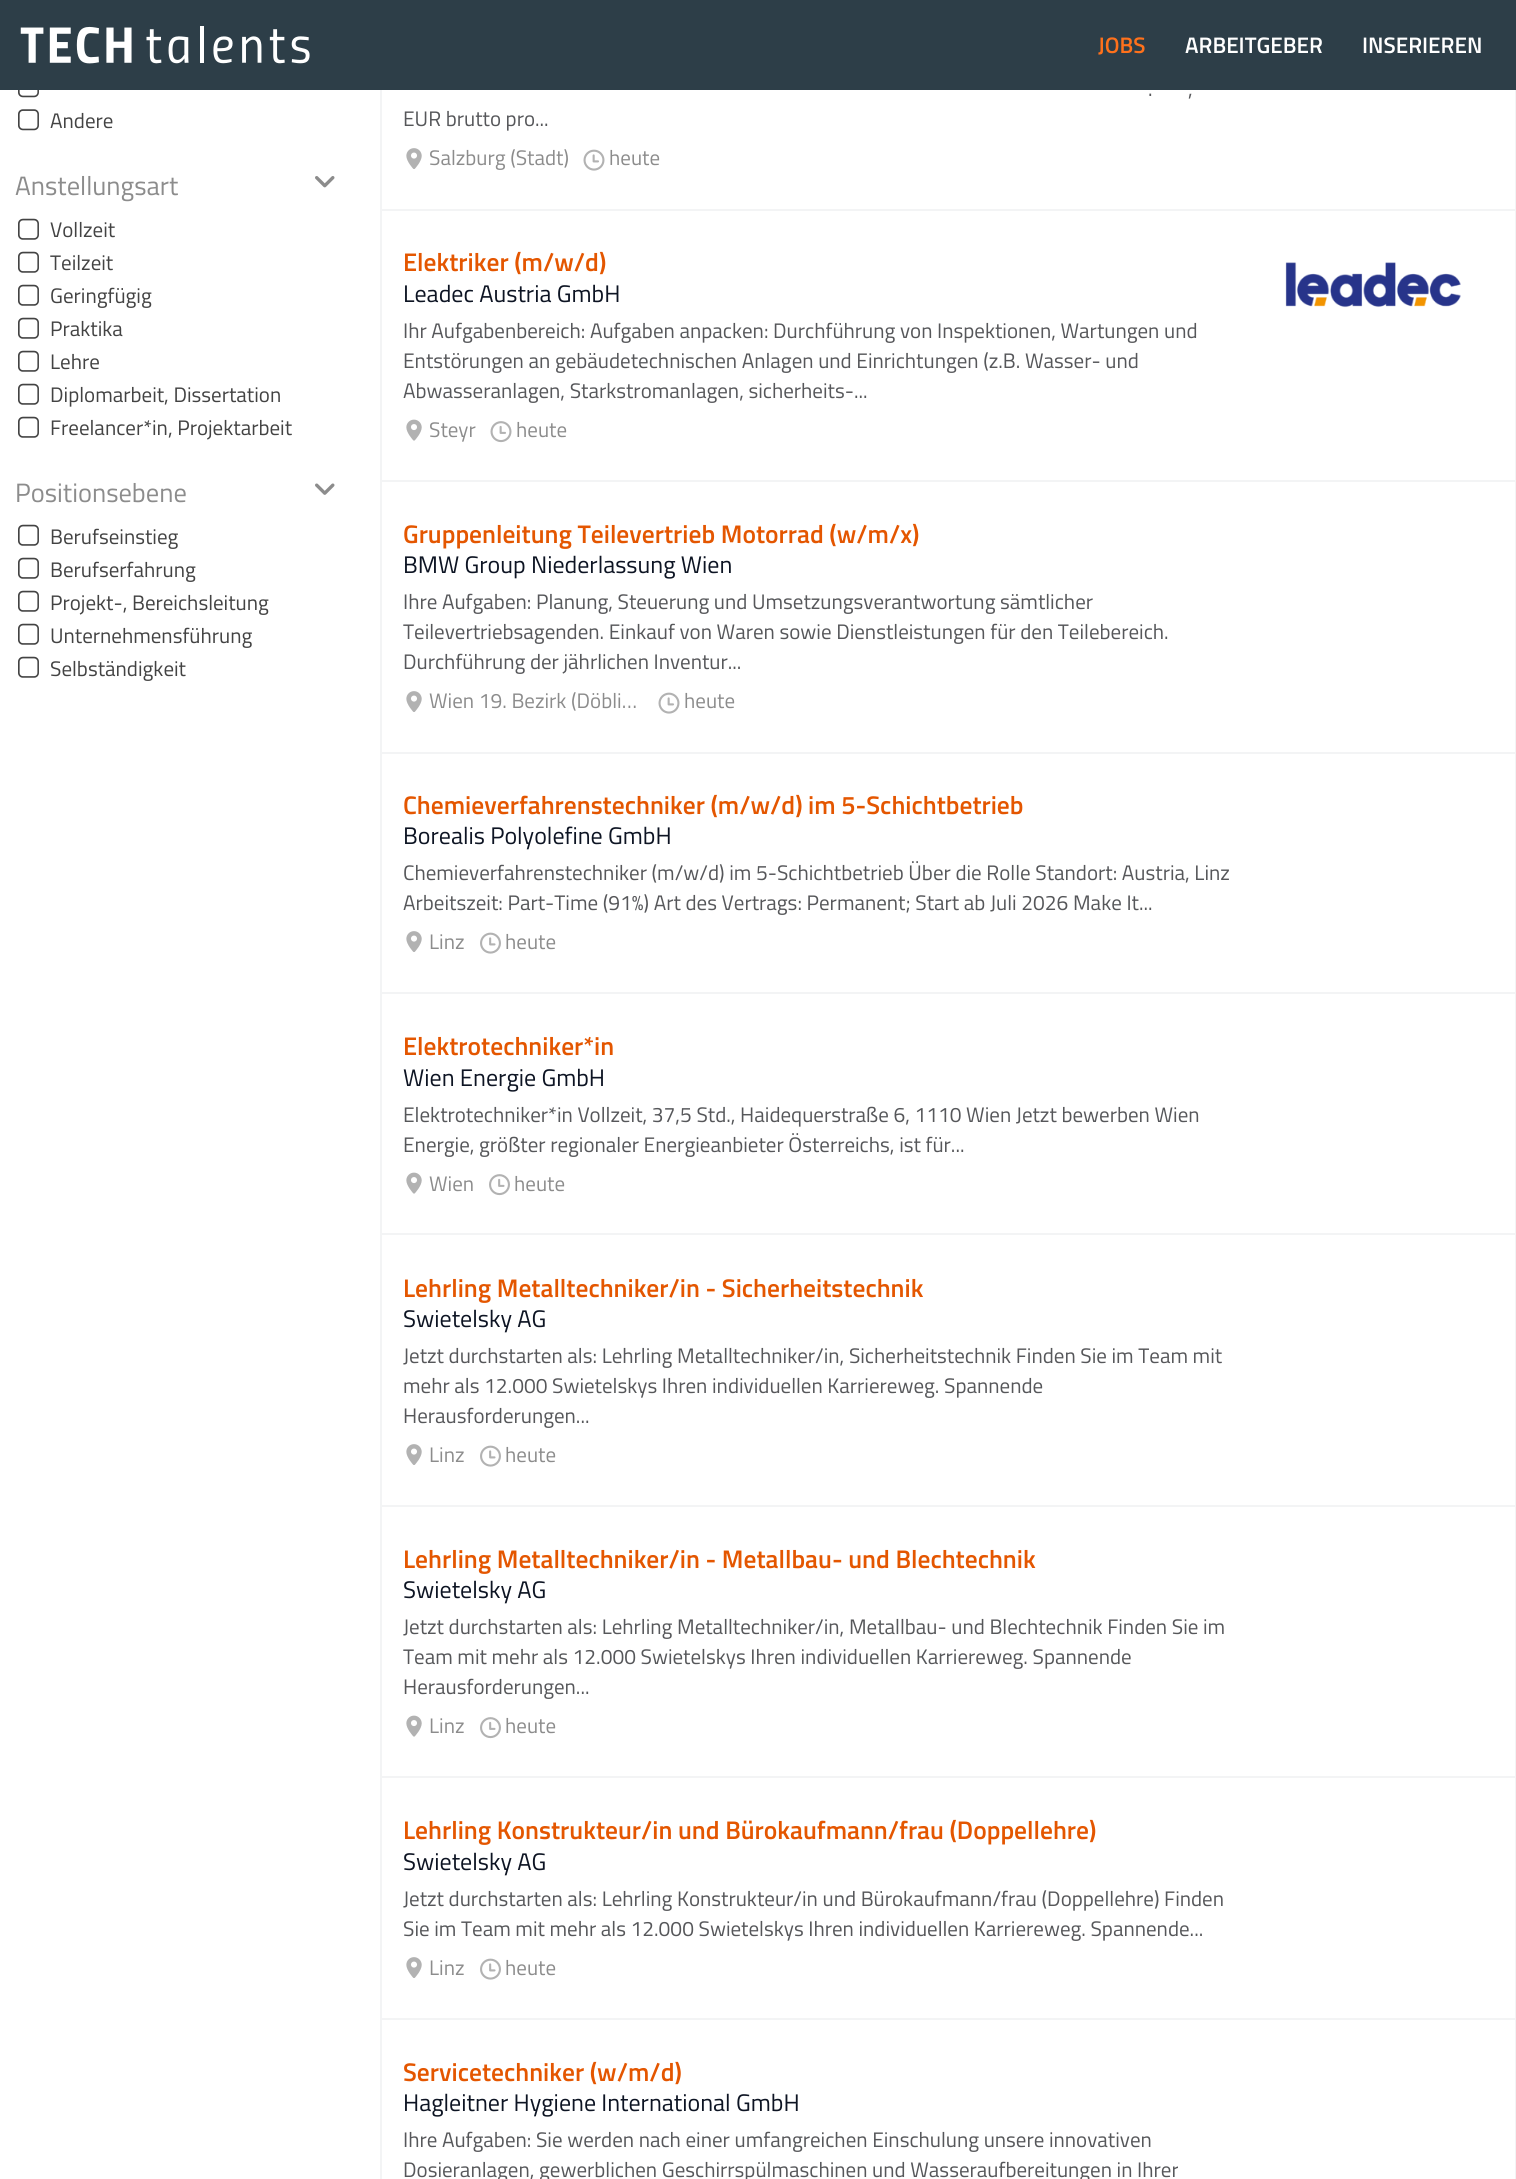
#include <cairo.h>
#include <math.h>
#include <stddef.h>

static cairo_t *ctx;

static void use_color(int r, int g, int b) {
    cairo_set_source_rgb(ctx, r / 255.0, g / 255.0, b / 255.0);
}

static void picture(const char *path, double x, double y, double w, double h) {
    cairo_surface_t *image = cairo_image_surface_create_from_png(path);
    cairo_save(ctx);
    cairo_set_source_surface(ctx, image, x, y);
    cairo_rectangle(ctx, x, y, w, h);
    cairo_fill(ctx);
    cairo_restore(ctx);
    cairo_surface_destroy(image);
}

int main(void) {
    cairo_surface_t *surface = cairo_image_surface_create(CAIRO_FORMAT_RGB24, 1516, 2179);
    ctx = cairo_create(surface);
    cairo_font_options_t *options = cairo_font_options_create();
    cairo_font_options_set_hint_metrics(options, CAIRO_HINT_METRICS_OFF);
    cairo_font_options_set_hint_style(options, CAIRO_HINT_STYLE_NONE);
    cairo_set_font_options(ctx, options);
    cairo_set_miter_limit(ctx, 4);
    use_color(255, 255, 255);
    cairo_paint(ctx);
    use_color(45, 62, 72);
    cairo_rectangle(ctx, 0, 0, 1516, 90);
    cairo_fill(ctx);
    picture("img1.png", 20, 26, 290, 38);
    cairo_select_font_face(ctx, "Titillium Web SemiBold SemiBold", CAIRO_FONT_SLANT_NORMAL, CAIRO_FONT_WEIGHT_NORMAL);
    cairo_set_font_size(ctx, 22.5);
    use_color(255, 113, 27);
    cairo_move_to(ctx, 1098, 53);
    cairo_show_text(ctx, "JOBS");
    use_color(255, 255, 255);
    cairo_move_to(ctx, 1185, 53);
    cairo_show_text(ctx, "ARBEITGEBER");
    cairo_move_to(ctx, 1362, 53);
    cairo_show_text(ctx, "INSERIEREN");
    picture("img2.png", 18, 90, 21, 8);
    picture("img3.png", 18, 109, 21, 22);
    cairo_select_font_face(ctx, "Titillium Web", CAIRO_FONT_SLANT_NORMAL, CAIRO_FONT_WEIGHT_NORMAL);
    cairo_set_font_size(ctx, 21);
    use_color(67, 67, 67);
    cairo_move_to(ctx, 50, 128);
    cairo_show_text(ctx, "Andere");
    cairo_set_font_size(ctx, 26.5);
    use_color(140, 140, 140);
    cairo_move_to(ctx, 15, 195);
    cairo_show_text(ctx, "Anstellungsart");
    picture("img4.png", 315, 176, 20, 12);
    picture("img5.png", 18, 218, 21, 22);
    cairo_set_font_size(ctx, 21);
    use_color(67, 67, 67);
    cairo_move_to(ctx, 50, 237);
    cairo_show_text(ctx, "Vollzeit");
    picture("img5.png", 18, 251, 21, 22);
    cairo_move_to(ctx, 50, 270);
    cairo_show_text(ctx, "Teilzeit");
    picture("img5.png", 18, 284, 21, 22);
    cairo_move_to(ctx, 50, 303);
    cairo_show_text(ctx, "Geringfügig");
    picture("img5.png", 18, 317, 21, 22);
    cairo_move_to(ctx, 50, 336);
    cairo_show_text(ctx, "Praktika");
    picture("img5.png", 18, 350, 21, 22);
    cairo_move_to(ctx, 50, 369);
    cairo_show_text(ctx, "Lehre");
    picture("img5.png", 18, 383, 21, 22);
    cairo_move_to(ctx, 50, 402);
    cairo_show_text(ctx, "Diplomarbeit, Dissertation");
    picture("img5.png", 18, 416, 21, 22);
    cairo_move_to(ctx, 50, 435);
    cairo_show_text(ctx, "Freelancer*in, Projektarbeit");
    cairo_set_font_size(ctx, 26.5);
    use_color(140, 140, 140);
    cairo_move_to(ctx, 15, 502);
    cairo_show_text(ctx, "Positionsebene");
    picture("img6.png", 315, 483, 20, 12);
    picture("img5.png", 18, 524, 21, 22);
    cairo_set_font_size(ctx, 21);
    use_color(67, 67, 67);
    cairo_move_to(ctx, 50, 544);
    cairo_show_text(ctx, "Berufseinstieg");
    picture("img5.png", 18, 557, 21, 22);
    cairo_move_to(ctx, 50, 577);
    cairo_show_text(ctx, "Berufserfahrung");
    picture("img5.png", 18, 590, 21, 22);
    cairo_move_to(ctx, 50, 610);
    cairo_show_text(ctx, "Projekt-, Bereichsleitung");
    picture("img5.png", 18, 623, 21, 22);
    cairo_move_to(ctx, 50, 643);
    cairo_show_text(ctx, "Unternehmensführung");
    picture("img5.png", 18, 656, 21, 22);
    cairo_move_to(ctx, 50, 676);
    cairo_show_text(ctx, "Selbständigkeit");
    use_color(243, 244, 245);
    cairo_rectangle(ctx, 1515, 90, 1, 2089);
    cairo_fill(ctx);
    cairo_rectangle(ctx, 380, 90, 2, 2089);
    cairo_fill(ctx);
    use_color(86, 87, 90);
    cairo_move_to(ctx, 1148, 96);
    cairo_show_text(ctx, ".");
    cairo_move_to(ctx, 1188, 96);
    cairo_show_text(ctx, ",");
    cairo_move_to(ctx, 403, 126);
    cairo_show_text(ctx, "EUR brutto pro...");
    picture("img7.png", 406, 148, 16, 21);
    use_color(140, 140, 140);
    cairo_move_to(ctx, 429, 165);
    cairo_show_text(ctx, "Salzburg (Stadt)");
    picture("img8.png", 583, 149, 22, 22);
    cairo_move_to(ctx, 609, 165);
    cairo_show_text(ctx, "heute");
    use_color(243, 244, 245);
    cairo_rectangle(ctx, 381, 209, 1134, 2);
    cairo_fill(ctx);
    cairo_select_font_face(ctx, "Titillium Web SemiBold SemiBold", CAIRO_FONT_SLANT_NORMAL, CAIRO_FONT_WEIGHT_NORMAL);
    cairo_set_font_size(ctx, 25.5);
    use_color(228, 86, 0);
    cairo_move_to(ctx, 403, 271);
    cairo_show_text(ctx, "Elektriker (m/w/d)");
    cairo_select_font_face(ctx, "Titillium Web", CAIRO_FONT_SLANT_NORMAL, CAIRO_FONT_WEIGHT_NORMAL);
    cairo_set_font_size(ctx, 24);
    use_color(13, 20, 35);
    cairo_move_to(ctx, 403, 302);
    cairo_show_text(ctx, "Leadec Austria GmbH");
    cairo_set_font_size(ctx, 21);
    use_color(86, 87, 90);
    cairo_move_to(ctx, 403, 338);
    cairo_show_text(ctx, "Ihr Aufgabenbereich: Aufgaben anpacken: Durchführung von Inspektionen, Wartungen und");
    cairo_move_to(ctx, 403, 368);
    cairo_show_text(ctx, "Entstörungen an gebäudetechnischen Anlagen und Einrichtungen (z.B. Wasser- und");
    cairo_move_to(ctx, 403, 398);
    cairo_show_text(ctx, "Abwasseranlagen, Starkstromanlagen, sicherheits-...");
    picture("img9.png", 406, 419, 16, 22);
    use_color(140, 140, 140);
    cairo_move_to(ctx, 429, 437);
    cairo_show_text(ctx, "Steyr");
    picture("img10.png", 490, 421, 22, 22);
    cairo_move_to(ctx, 516, 437);
    cairo_show_text(ctx, "heute");
    picture("img11.png", 1285, 262, 176, 46);
    use_color(243, 244, 245);
    cairo_rectangle(ctx, 381, 480, 1134, 2);
    cairo_fill(ctx);
    cairo_select_font_face(ctx, "Titillium Web SemiBold SemiBold", CAIRO_FONT_SLANT_NORMAL, CAIRO_FONT_WEIGHT_NORMAL);
    cairo_set_font_size(ctx, 25.5);
    use_color(228, 86, 0);
    cairo_move_to(ctx, 403, 543);
    cairo_show_text(ctx, "Gruppenleitung Teilevertrieb Motorrad (w/m/x)");
    cairo_select_font_face(ctx, "Titillium Web", CAIRO_FONT_SLANT_NORMAL, CAIRO_FONT_WEIGHT_NORMAL);
    cairo_set_font_size(ctx, 24);
    use_color(13, 20, 35);
    cairo_move_to(ctx, 403, 573);
    cairo_show_text(ctx, "BMW Group Niederlassung Wien");
    cairo_set_font_size(ctx, 21);
    use_color(86, 87, 90);
    cairo_move_to(ctx, 403, 609);
    cairo_show_text(ctx, "Ihre Aufgaben: Planung, Steuerung und Umsetzungsverantwortung sämtlicher");
    cairo_move_to(ctx, 403, 639);
    cairo_show_text(ctx, "Teilevertriebsagenden. Einkauf von Waren sowie Dienstleistungen für den Teilebereich.");
    cairo_move_to(ctx, 403, 669);
    cairo_show_text(ctx, "Durchführung der jährlichen Inventur...");
    picture("img7.png", 406, 691, 16, 21);
    use_color(140, 140, 140);
    cairo_move_to(ctx, 429, 708);
    cairo_show_text(ctx, "Wien 19. Bezirk (Döbli…");
    picture("img8.png", 658, 692, 22, 22);
    cairo_move_to(ctx, 684, 708);
    cairo_show_text(ctx, "heute");
    use_color(243, 244, 245);
    cairo_rectangle(ctx, 381, 752, 1134, 2);
    cairo_fill(ctx);
    cairo_select_font_face(ctx, "Titillium Web SemiBold SemiBold", CAIRO_FONT_SLANT_NORMAL, CAIRO_FONT_WEIGHT_NORMAL);
    cairo_set_font_size(ctx, 25.5);
    use_color(228, 86, 0);
    cairo_move_to(ctx, 403, 814);
    cairo_show_text(ctx, "Chemieverfahrenstechniker (m/w/d) im 5-Schichtbetrieb");
    cairo_select_font_face(ctx, "Titillium Web", CAIRO_FONT_SLANT_NORMAL, CAIRO_FONT_WEIGHT_NORMAL);
    cairo_set_font_size(ctx, 24);
    use_color(13, 20, 35);
    cairo_move_to(ctx, 403, 844);
    cairo_show_text(ctx, "Borealis Polyolefine GmbH");
    cairo_set_font_size(ctx, 21);
    use_color(86, 87, 90);
    cairo_move_to(ctx, 403, 880);
    cairo_show_text(ctx, "Chemieverfahrenstechniker (m/w/d) im 5-Schichtbetrieb Über die Rolle Standort: Austria, Linz");
    cairo_move_to(ctx, 403, 910);
    cairo_show_text(ctx, "Arbeitszeit: Part-Time (91%) Art des Vertrags: Permanent; Start ab Juli 2026 Make It...");
    picture("img7.png", 406, 931, 16, 21);
    use_color(140, 140, 140);
    cairo_move_to(ctx, 429, 949);
    cairo_show_text(ctx, "Linz");
    picture("img12.png", 480, 932, 21, 22);
    cairo_move_to(ctx, 505, 949);
    cairo_show_text(ctx, "heute");
    use_color(243, 244, 245);
    cairo_rectangle(ctx, 381, 992, 1134, 2);
    cairo_fill(ctx);
    cairo_select_font_face(ctx, "Titillium Web SemiBold SemiBold", CAIRO_FONT_SLANT_NORMAL, CAIRO_FONT_WEIGHT_NORMAL);
    cairo_set_font_size(ctx, 25.5);
    use_color(228, 86, 0);
    cairo_move_to(ctx, 403, 1055);
    cairo_show_text(ctx, "Elektrotechniker*in");
    cairo_select_font_face(ctx, "Titillium Web", CAIRO_FONT_SLANT_NORMAL, CAIRO_FONT_WEIGHT_NORMAL);
    cairo_set_font_size(ctx, 24);
    use_color(13, 20, 35);
    cairo_move_to(ctx, 403, 1086);
    cairo_show_text(ctx, "Wien Energie GmbH");
    cairo_set_font_size(ctx, 21);
    use_color(86, 87, 90);
    cairo_move_to(ctx, 403, 1122);
    cairo_show_text(ctx, "Elektrotechniker*in Vollzeit, 37,5 Std., Haidequerstraße 6, 1110 Wien Jetzt bewerben Wien");
    cairo_move_to(ctx, 403, 1152);
    cairo_show_text(ctx, "Energie, größter regionaler Energieanbieter Österreichs, ist für...");
    picture("img9.png", 406, 1172, 16, 22);
    use_color(140, 140, 140);
    cairo_move_to(ctx, 429, 1191);
    cairo_show_text(ctx, "Wien");
    picture("img13.png", 489, 1174, 21, 22);
    cairo_move_to(ctx, 514, 1191);
    cairo_show_text(ctx, "heute");
    use_color(243, 244, 245);
    cairo_rectangle(ctx, 381, 1233, 1134, 2);
    cairo_fill(ctx);
    cairo_select_font_face(ctx, "Titillium Web SemiBold SemiBold", CAIRO_FONT_SLANT_NORMAL, CAIRO_FONT_WEIGHT_NORMAL);
    cairo_set_font_size(ctx, 25.5);
    use_color(228, 86, 0);
    cairo_move_to(ctx, 403, 1297);
    cairo_show_text(ctx, "Lehrling Metalltechniker/in - Sicherheitstechnik");
    cairo_select_font_face(ctx, "Titillium Web", CAIRO_FONT_SLANT_NORMAL, CAIRO_FONT_WEIGHT_NORMAL);
    cairo_set_font_size(ctx, 24);
    use_color(13, 20, 35);
    cairo_move_to(ctx, 403, 1327);
    cairo_show_text(ctx, "Swietelsky AG");
    cairo_set_font_size(ctx, 21);
    use_color(86, 87, 90);
    cairo_move_to(ctx, 403, 1363);
    cairo_show_text(ctx, "Jetzt durchstarten als: Lehrling Metalltechniker/in, Sicherheitstechnik Finden Sie im Team mit");
    cairo_move_to(ctx, 403, 1393);
    cairo_show_text(ctx, "mehr als 12.000 Swietelskys Ihren individuellen Karriereweg. Spannende");
    cairo_move_to(ctx, 403, 1423);
    cairo_show_text(ctx, "Herausforderungen...");
    picture("img7.png", 406, 1444, 16, 21);
    use_color(140, 140, 140);
    cairo_move_to(ctx, 429, 1462);
    cairo_show_text(ctx, "Linz");
    picture("img12.png", 480, 1445, 21, 22);
    cairo_move_to(ctx, 505, 1462);
    cairo_show_text(ctx, "heute");
    use_color(243, 244, 245);
    cairo_rectangle(ctx, 381, 1505, 1134, 2);
    cairo_fill(ctx);
    cairo_select_font_face(ctx, "Titillium Web SemiBold SemiBold", CAIRO_FONT_SLANT_NORMAL, CAIRO_FONT_WEIGHT_NORMAL);
    cairo_set_font_size(ctx, 25.5);
    use_color(228, 86, 0);
    cairo_move_to(ctx, 403, 1568);
    cairo_show_text(ctx, "Lehrling Metalltechniker/in - Metallbau- und Blechtechnik");
    cairo_select_font_face(ctx, "Titillium Web", CAIRO_FONT_SLANT_NORMAL, CAIRO_FONT_WEIGHT_NORMAL);
    cairo_set_font_size(ctx, 24);
    use_color(13, 20, 35);
    cairo_move_to(ctx, 403, 1598);
    cairo_show_text(ctx, "Swietelsky AG");
    cairo_set_font_size(ctx, 21);
    use_color(86, 87, 90);
    cairo_move_to(ctx, 403, 1634);
    cairo_show_text(ctx, "Jetzt durchstarten als: Lehrling Metalltechniker/in, Metallbau- und Blechtechnik Finden Sie im");
    cairo_move_to(ctx, 403, 1664);
    cairo_show_text(ctx, "Team mit mehr als 12.000 Swietelskys Ihren individuellen Karriereweg. Spannende");
    cairo_move_to(ctx, 403, 1694);
    cairo_show_text(ctx, "Herausforderungen...");
    picture("img9.png", 406, 1715, 16, 22);
    use_color(140, 140, 140);
    cairo_move_to(ctx, 429, 1733);
    cairo_show_text(ctx, "Linz");
    picture("img13.png", 480, 1717, 21, 22);
    cairo_move_to(ctx, 505, 1733);
    cairo_show_text(ctx, "heute");
    use_color(243, 244, 245);
    cairo_rectangle(ctx, 381, 1776, 1134, 2);
    cairo_fill(ctx);
    cairo_select_font_face(ctx, "Titillium Web SemiBold SemiBold", CAIRO_FONT_SLANT_NORMAL, CAIRO_FONT_WEIGHT_NORMAL);
    cairo_set_font_size(ctx, 25.5);
    use_color(228, 86, 0);
    cairo_move_to(ctx, 403, 1839);
    cairo_show_text(ctx, "Lehrling Konstrukteur/in und Bürokaufmann/frau (Doppellehre)");
    cairo_select_font_face(ctx, "Titillium Web", CAIRO_FONT_SLANT_NORMAL, CAIRO_FONT_WEIGHT_NORMAL);
    cairo_set_font_size(ctx, 24);
    use_color(13, 20, 35);
    cairo_move_to(ctx, 403, 1870);
    cairo_show_text(ctx, "Swietelsky AG");
    cairo_set_font_size(ctx, 21);
    use_color(86, 87, 90);
    cairo_move_to(ctx, 403, 1906);
    cairo_show_text(ctx, "Jetzt durchstarten als: Lehrling Konstrukteur/in und Bürokaufmann/frau (Doppellehre) Finden");
    cairo_move_to(ctx, 403, 1936);
    cairo_show_text(ctx, "Sie im Team mit mehr als 12.000 Swietelskys Ihren individuellen Karriereweg. Spannende...");
    picture("img7.png", 406, 1957, 16, 21);
    use_color(140, 140, 140);
    cairo_move_to(ctx, 429, 1975);
    cairo_show_text(ctx, "Linz");
    picture("img12.png", 480, 1958, 21, 22);
    cairo_move_to(ctx, 505, 1975);
    cairo_show_text(ctx, "heute");
    use_color(243, 244, 245);
    cairo_rectangle(ctx, 381, 2018, 1134, 2);
    cairo_fill(ctx);
    cairo_select_font_face(ctx, "Titillium Web SemiBold SemiBold", CAIRO_FONT_SLANT_NORMAL, CAIRO_FONT_WEIGHT_NORMAL);
    cairo_set_font_size(ctx, 25.5);
    use_color(228, 86, 0);
    cairo_move_to(ctx, 403, 2081);
    cairo_show_text(ctx, "Servicetechniker (w/m/d)");
    cairo_select_font_face(ctx, "Titillium Web", CAIRO_FONT_SLANT_NORMAL, CAIRO_FONT_WEIGHT_NORMAL);
    cairo_set_font_size(ctx, 24);
    use_color(13, 20, 35);
    cairo_move_to(ctx, 403, 2111);
    cairo_show_text(ctx, "Hagleitner Hygiene International GmbH");
    cairo_set_font_size(ctx, 21);
    use_color(86, 87, 90);
    cairo_move_to(ctx, 403, 2147);
    cairo_show_text(ctx, "Ihre Aufgaben: Sie werden nach einer umfangreichen Einschulung unsere innovativen");
    cairo_move_to(ctx, 403, 2177);
    cairo_show_text(ctx, "Dosieranlagen, gewerblichen Geschirrspülmaschinen und Wasseraufbereitungen in Ihrer");
    cairo_surface_write_to_png(surface, "result.png");
    cairo_font_options_destroy(options);
    cairo_destroy(ctx);
    cairo_surface_destroy(surface);
    return 0;
}
